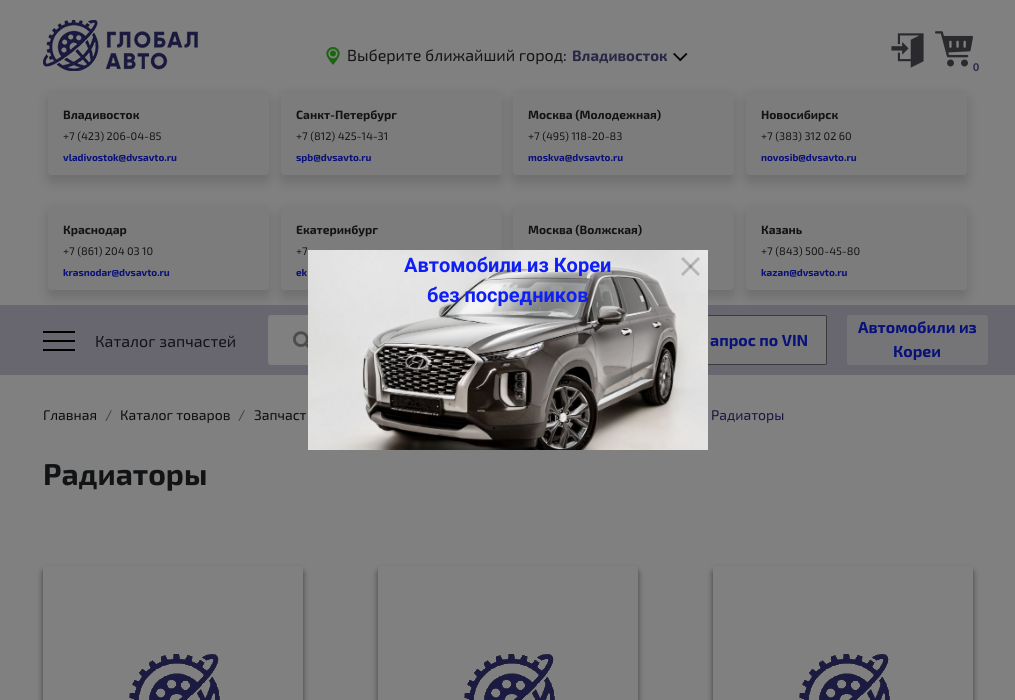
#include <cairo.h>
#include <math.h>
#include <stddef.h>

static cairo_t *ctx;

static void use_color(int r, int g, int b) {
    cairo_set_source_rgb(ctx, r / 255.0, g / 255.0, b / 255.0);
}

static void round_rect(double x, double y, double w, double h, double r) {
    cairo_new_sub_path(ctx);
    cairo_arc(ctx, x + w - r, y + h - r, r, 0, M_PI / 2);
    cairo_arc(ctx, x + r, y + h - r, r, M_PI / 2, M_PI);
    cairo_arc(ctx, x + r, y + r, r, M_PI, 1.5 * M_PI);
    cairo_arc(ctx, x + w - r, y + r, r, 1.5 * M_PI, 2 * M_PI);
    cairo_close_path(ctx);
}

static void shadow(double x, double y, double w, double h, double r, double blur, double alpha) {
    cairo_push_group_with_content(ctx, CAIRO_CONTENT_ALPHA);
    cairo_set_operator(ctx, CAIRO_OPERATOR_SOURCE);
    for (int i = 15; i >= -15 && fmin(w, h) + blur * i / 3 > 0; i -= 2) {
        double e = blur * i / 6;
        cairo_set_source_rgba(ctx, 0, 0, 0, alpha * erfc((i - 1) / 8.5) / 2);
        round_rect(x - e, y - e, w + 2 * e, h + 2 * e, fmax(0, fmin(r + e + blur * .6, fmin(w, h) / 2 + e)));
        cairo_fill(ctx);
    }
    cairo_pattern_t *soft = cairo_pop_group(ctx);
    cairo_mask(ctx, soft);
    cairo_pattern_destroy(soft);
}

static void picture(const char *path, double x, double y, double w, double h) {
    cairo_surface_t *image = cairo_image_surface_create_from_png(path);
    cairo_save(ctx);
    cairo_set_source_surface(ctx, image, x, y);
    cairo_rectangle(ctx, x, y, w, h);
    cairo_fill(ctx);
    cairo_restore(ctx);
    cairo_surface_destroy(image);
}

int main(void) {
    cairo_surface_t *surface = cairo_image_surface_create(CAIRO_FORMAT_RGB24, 1015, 700);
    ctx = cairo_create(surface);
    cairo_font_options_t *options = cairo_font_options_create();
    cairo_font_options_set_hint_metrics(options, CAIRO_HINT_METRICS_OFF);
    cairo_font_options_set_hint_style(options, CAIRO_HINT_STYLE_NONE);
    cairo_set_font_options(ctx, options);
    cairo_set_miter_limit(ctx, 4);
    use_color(128, 128, 128);
    cairo_paint(ctx);
    picture("img1.png", 43, 20, 155, 51);
    picture("img2.png", 326, 47, 14, 18);
    cairo_select_font_face(ctx, "Exo 2", CAIRO_FONT_SLANT_NORMAL, CAIRO_FONT_WEIGHT_NORMAL);
    cairo_set_font_size(ctx, 16);
    use_color(17, 19, 21);
    cairo_move_to(ctx, 347, 61);
    cairo_show_text(ctx, "Выберите ближайший город:");
    cairo_select_font_face(ctx, "Exo 2", CAIRO_FONT_SLANT_NORMAL, CAIRO_FONT_WEIGHT_BOLD);
    cairo_set_font_size(ctx, 15);
    use_color(40, 39, 70);
    cairo_move_to(ctx, 572, 61);
    cairo_show_text(ctx, "Владивосток");
    use_color(0, 0, 0);
    cairo_new_path(ctx);
    cairo_move_to(ctx, 674.5, 53);
    cairo_line_to(ctx, 681.5, 60);
    cairo_line_to(ctx, 680, 61);
    cairo_line_to(ctx, 673, 54);
    cairo_close_path(ctx);
    cairo_fill(ctx);
    cairo_new_path(ctx);
    cairo_move_to(ctx, 679, 60);
    cairo_line_to(ctx, 686, 53);
    cairo_line_to(ctx, 687.5, 54);
    cairo_line_to(ctx, 680.5, 61);
    cairo_close_path(ctx);
    cairo_fill(ctx);
    picture("img3.png", 891, 33, 33, 35);
    picture("img4.png", 935, 31, 38, 36);
    cairo_select_font_face(ctx, "Carlito", CAIRO_FONT_SLANT_NORMAL, CAIRO_FONT_WEIGHT_BOLD);
    cairo_set_font_size(ctx, 12);
    use_color(40, 39, 70);
    cairo_move_to(ctx, 973, 71);
    cairo_show_text(ctx, "0");
    use_color(0, 0, 0);
    shadow(48, 97, 221, 85, 4, 6, 0.15);
    use_color(124, 124, 124);
    round_rect(48, 90, 221, 85, 4);
    cairo_fill(ctx);
    cairo_select_font_face(ctx, "Exo 2", CAIRO_FONT_SLANT_NORMAL, CAIRO_FONT_WEIGHT_BOLD);
    use_color(17, 19, 21);
    cairo_move_to(ctx, 63, 119);
    cairo_show_text(ctx, "Владивосток");
    cairo_select_font_face(ctx, "Exo 2", CAIRO_FONT_SLANT_NORMAL, CAIRO_FONT_WEIGHT_NORMAL);
    cairo_set_font_size(ctx, 11);
    cairo_move_to(ctx, 63, 140);
    cairo_show_text(ctx, "+7 (423) 206-04-85");
    cairo_select_font_face(ctx, "Exo 2", CAIRO_FONT_SLANT_NORMAL, CAIRO_FONT_WEIGHT_BOLD);
    cairo_set_font_size(ctx, 10);
    use_color(8, 16, 122);
    cairo_move_to(ctx, 63, 161);
    cairo_show_text(ctx, "vladivostok@dvsavto.ru");
    use_color(0, 0, 0);
    shadow(281, 97, 221, 85, 4, 6, 0.15);
    use_color(124, 124, 124);
    round_rect(281, 90, 221, 85, 4);
    cairo_fill(ctx);
    cairo_set_font_size(ctx, 12);
    use_color(17, 19, 21);
    cairo_move_to(ctx, 296, 119);
    cairo_show_text(ctx, "Санкт-Петербург");
    cairo_select_font_face(ctx, "Exo 2", CAIRO_FONT_SLANT_NORMAL, CAIRO_FONT_WEIGHT_NORMAL);
    cairo_set_font_size(ctx, 11);
    cairo_move_to(ctx, 296, 140);
    cairo_show_text(ctx, "+7 (812) 425-14-31");
    cairo_select_font_face(ctx, "Exo 2", CAIRO_FONT_SLANT_NORMAL, CAIRO_FONT_WEIGHT_BOLD);
    cairo_set_font_size(ctx, 10);
    use_color(8, 16, 122);
    cairo_move_to(ctx, 296, 161);
    cairo_show_text(ctx, "spb@dvsavto.ru");
    use_color(0, 0, 0);
    shadow(513, 97, 221, 85, 4, 6, 0.15);
    use_color(124, 124, 124);
    round_rect(513, 90, 221, 85, 4);
    cairo_fill(ctx);
    cairo_set_font_size(ctx, 12);
    use_color(17, 19, 21);
    cairo_move_to(ctx, 528, 119);
    cairo_show_text(ctx, "Москва (Молодежная)");
    cairo_select_font_face(ctx, "Exo 2", CAIRO_FONT_SLANT_NORMAL, CAIRO_FONT_WEIGHT_NORMAL);
    cairo_set_font_size(ctx, 11);
    cairo_move_to(ctx, 528, 140);
    cairo_show_text(ctx, "+7 (495) 118-20-83");
    cairo_select_font_face(ctx, "Exo 2", CAIRO_FONT_SLANT_NORMAL, CAIRO_FONT_WEIGHT_BOLD);
    cairo_set_font_size(ctx, 10);
    use_color(8, 16, 122);
    cairo_move_to(ctx, 528, 161);
    cairo_show_text(ctx, "moskva@dvsavto.ru");
    use_color(0, 0, 0);
    shadow(746, 97, 221, 85, 4, 6, 0.15);
    use_color(124, 124, 124);
    round_rect(746, 90, 221, 85, 4);
    cairo_fill(ctx);
    cairo_set_font_size(ctx, 12);
    use_color(17, 19, 21);
    cairo_move_to(ctx, 761, 119);
    cairo_show_text(ctx, "Новосибирск");
    cairo_select_font_face(ctx, "Exo 2", CAIRO_FONT_SLANT_NORMAL, CAIRO_FONT_WEIGHT_NORMAL);
    cairo_set_font_size(ctx, 11);
    cairo_move_to(ctx, 761, 140);
    cairo_show_text(ctx, "+7 (383) 312 02 60");
    cairo_select_font_face(ctx, "Exo 2", CAIRO_FONT_SLANT_NORMAL, CAIRO_FONT_WEIGHT_BOLD);
    cairo_set_font_size(ctx, 10);
    use_color(8, 16, 122);
    cairo_move_to(ctx, 761, 161);
    cairo_show_text(ctx, "novosib@dvsavto.ru");
    use_color(104, 103, 112);
    cairo_rectangle(ctx, 0, 305, 1015, 70);
    cairo_fill(ctx);
    use_color(0, 0, 0);
    shadow(48, 212, 221, 85, 4, 6, 0.15);
    use_color(124, 124, 124);
    round_rect(48, 205, 221, 85, 4);
    cairo_fill(ctx);
    cairo_set_font_size(ctx, 12);
    use_color(17, 19, 21);
    cairo_move_to(ctx, 63, 234);
    cairo_show_text(ctx, "Краснодар");
    cairo_select_font_face(ctx, "Exo 2", CAIRO_FONT_SLANT_NORMAL, CAIRO_FONT_WEIGHT_NORMAL);
    cairo_set_font_size(ctx, 11);
    cairo_move_to(ctx, 63, 255);
    cairo_show_text(ctx, "+7 (861) 204 03 10");
    cairo_select_font_face(ctx, "Exo 2", CAIRO_FONT_SLANT_NORMAL, CAIRO_FONT_WEIGHT_BOLD);
    cairo_set_font_size(ctx, 10);
    use_color(8, 16, 122);
    cairo_move_to(ctx, 63, 276);
    cairo_show_text(ctx, "krasnodar@dvsavto.ru");
    use_color(0, 0, 0);
    shadow(281, 212, 221, 85, 4, 6, 0.15);
    use_color(124, 124, 124);
    round_rect(281, 205, 221, 85, 4);
    cairo_fill(ctx);
    cairo_set_font_size(ctx, 12);
    use_color(17, 19, 21);
    cairo_move_to(ctx, 296, 234);
    cairo_show_text(ctx, "Екатеринбург");
    cairo_select_font_face(ctx, "Exo 2", CAIRO_FONT_SLANT_NORMAL, CAIRO_FONT_WEIGHT_NORMAL);
    cairo_set_font_size(ctx, 11);
    cairo_move_to(ctx, 296, 255);
    cairo_show_text(ctx, "+7");
    cairo_select_font_face(ctx, "Exo 2", CAIRO_FONT_SLANT_NORMAL, CAIRO_FONT_WEIGHT_BOLD);
    cairo_set_font_size(ctx, 10);
    use_color(8, 16, 122);
    cairo_move_to(ctx, 296, 276);
    cairo_show_text(ctx, "ek");
    use_color(0, 0, 0);
    shadow(513, 212, 221, 85, 4, 6, 0.15);
    use_color(124, 124, 124);
    round_rect(513, 205, 221, 85, 4);
    cairo_fill(ctx);
    cairo_set_font_size(ctx, 12);
    use_color(17, 19, 21);
    cairo_move_to(ctx, 528, 234);
    cairo_show_text(ctx, "Москва (Волжская)");
    use_color(0, 0, 0);
    shadow(746, 212, 221, 85, 4, 6, 0.15);
    use_color(124, 124, 124);
    round_rect(746, 205, 221, 85, 4);
    cairo_fill(ctx);
    use_color(17, 19, 21);
    cairo_move_to(ctx, 761, 234);
    cairo_show_text(ctx, "Казань");
    cairo_select_font_face(ctx, "Exo 2", CAIRO_FONT_SLANT_NORMAL, CAIRO_FONT_WEIGHT_NORMAL);
    cairo_set_font_size(ctx, 11);
    cairo_move_to(ctx, 761, 255);
    cairo_show_text(ctx, "+7 (843) 500-45-80");
    cairo_select_font_face(ctx, "Exo 2", CAIRO_FONT_SLANT_NORMAL, CAIRO_FONT_WEIGHT_BOLD);
    cairo_set_font_size(ctx, 10);
    use_color(8, 16, 122);
    cairo_move_to(ctx, 761, 276);
    cairo_show_text(ctx, "kazan@dvsavto.ru");
    use_color(128, 128, 128);
    cairo_new_path(ctx);
    cairo_move_to(ctx, 271, 315);
    cairo_line_to(ctx, 568, 315);
    cairo_line_to(ctx, 568, 365);
    cairo_line_to(ctx, 271, 365);
    cairo_curve_to(ctx, 269.5, 365, 268, 363.5, 268, 362);
    cairo_line_to(ctx, 268, 318);
    cairo_curve_to(ctx, 268, 316.5, 269.5, 315, 271, 315);
    cairo_close_path(ctx);
    cairo_fill(ctx);
    use_color(120, 120, 120);
    round_rect(682.5, 315.5, 144, 49, 1.5);
    cairo_fill_preserve(ctx);
    use_color(59, 59, 59);
    cairo_set_line_width(ctx, 1);
    cairo_stroke(ctx);
    picture("img5.png", 308, 250, 400, 200);
    cairo_select_font_face(ctx, "Roboto", CAIRO_FONT_SLANT_NORMAL, CAIRO_FONT_WEIGHT_BOLD);
    cairo_set_font_size(ctx, 20);
    use_color(16, 32, 244);
    cairo_move_to(ctx, 404, 272);
    cairo_show_text(ctx, "Автомобили из Кореи");
    cairo_move_to(ctx, 427, 302);
    cairo_show_text(ctx, "без посредников");
    cairo_set_source_rgba(ctx, 0, 0, 0, 0.2);
    cairo_new_path(ctx);
    cairo_move_to(ctx, 683, 257);
    cairo_line_to(ctx, 700, 274);
    cairo_line_to(ctx, 698, 276);
    cairo_line_to(ctx, 681, 259);
    cairo_close_path(ctx);
    cairo_fill(ctx);
    cairo_new_path(ctx);
    cairo_move_to(ctx, 681, 274);
    cairo_line_to(ctx, 698, 257);
    cairo_line_to(ctx, 700, 259);
    cairo_line_to(ctx, 683, 276);
    cairo_close_path(ctx);
    cairo_fill(ctx);
    cairo_select_font_face(ctx, "Exo 2", CAIRO_FONT_SLANT_NORMAL, CAIRO_FONT_WEIGHT_NORMAL);
    cairo_set_font_size(ctx, 14);
    use_color(14, 11, 11);
    cairo_move_to(ctx, 43, 420);
    cairo_show_text(ctx, "Главная");
    use_color(54, 59, 63);
    cairo_move_to(ctx, 105, 420);
    cairo_show_text(ctx, "/");
    use_color(14, 11, 11);
    cairo_move_to(ctx, 120, 420);
    cairo_show_text(ctx, "Каталог товаров");
    use_color(54, 59, 63);
    cairo_move_to(ctx, 238, 420);
    cairo_show_text(ctx, "/");
    use_color(14, 11, 11);
    cairo_move_to(ctx, 254, 420);
    cairo_show_text(ctx, "Запчаст");
    use_color(24, 22, 61);
    cairo_move_to(ctx, 711, 420);
    cairo_show_text(ctx, "Радиаторы");
    cairo_select_font_face(ctx, "Exo 2", CAIRO_FONT_SLANT_NORMAL, CAIRO_FONT_WEIGHT_BOLD);
    cairo_set_font_size(ctx, 30);
    use_color(17, 19, 21);
    cairo_move_to(ctx, 43, 485);
    cairo_show_text(ctx, "Радиаторы");
    cairo_save(ctx);
    cairo_set_fill_rule(ctx, CAIRO_FILL_RULE_EVEN_ODD);
    cairo_new_path(ctx);
    cairo_move_to(ctx, 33, 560);
    cairo_line_to(ctx, 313, 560);
    cairo_line_to(ctx, 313, 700);
    cairo_line_to(ctx, 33, 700);
    cairo_close_path(ctx);
    cairo_move_to(ctx, 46, 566);
    cairo_line_to(ctx, 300, 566);
    cairo_curve_to(ctx, 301.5, 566, 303, 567.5, 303, 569);
    cairo_line_to(ctx, 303, 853);
    cairo_curve_to(ctx, 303, 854.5, 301.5, 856, 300, 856);
    cairo_line_to(ctx, 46, 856);
    cairo_curve_to(ctx, 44.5, 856, 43, 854.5, 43, 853);
    cairo_line_to(ctx, 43, 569);
    cairo_curve_to(ctx, 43, 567.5, 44.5, 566, 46, 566);
    cairo_close_path(ctx);
    cairo_clip(ctx);
    use_color(0, 0, 0);
    shadow(43, 570, 260, 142, 3, 3, 0.5);
    cairo_restore(ctx);
    picture("img6.png", 129, 654, 91, 46);
    cairo_save(ctx);
    cairo_set_fill_rule(ctx, CAIRO_FILL_RULE_EVEN_ODD);
    cairo_new_path(ctx);
    cairo_move_to(ctx, 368, 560);
    cairo_line_to(ctx, 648, 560);
    cairo_line_to(ctx, 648, 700);
    cairo_line_to(ctx, 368, 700);
    cairo_close_path(ctx);
    cairo_move_to(ctx, 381, 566);
    cairo_line_to(ctx, 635, 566);
    cairo_curve_to(ctx, 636.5, 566, 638, 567.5, 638, 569);
    cairo_line_to(ctx, 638, 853);
    cairo_curve_to(ctx, 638, 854.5, 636.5, 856, 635, 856);
    cairo_line_to(ctx, 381, 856);
    cairo_curve_to(ctx, 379.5, 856, 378, 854.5, 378, 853);
    cairo_line_to(ctx, 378, 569);
    cairo_curve_to(ctx, 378, 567.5, 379.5, 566, 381, 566);
    cairo_close_path(ctx);
    cairo_clip(ctx);
    use_color(0, 0, 0);
    shadow(378, 570, 260, 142, 3, 3, 0.5);
    cairo_restore(ctx);
    picture("img6.png", 464, 654, 91, 46);
    cairo_save(ctx);
    cairo_set_fill_rule(ctx, CAIRO_FILL_RULE_EVEN_ODD);
    cairo_new_path(ctx);
    cairo_move_to(ctx, 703, 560);
    cairo_line_to(ctx, 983, 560);
    cairo_line_to(ctx, 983, 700);
    cairo_line_to(ctx, 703, 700);
    cairo_close_path(ctx);
    cairo_move_to(ctx, 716, 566);
    cairo_line_to(ctx, 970, 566);
    cairo_curve_to(ctx, 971.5, 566, 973, 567.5, 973, 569);
    cairo_line_to(ctx, 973, 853);
    cairo_curve_to(ctx, 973, 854.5, 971.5, 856, 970, 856);
    cairo_line_to(ctx, 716, 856);
    cairo_curve_to(ctx, 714.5, 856, 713, 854.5, 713, 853);
    cairo_line_to(ctx, 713, 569);
    cairo_curve_to(ctx, 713, 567.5, 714.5, 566, 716, 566);
    cairo_close_path(ctx);
    cairo_clip(ctx);
    use_color(0, 0, 0);
    shadow(713, 570, 260, 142, 3, 3, 0.5);
    cairo_restore(ctx);
    picture("img6.png", 799, 654, 91, 46);
    use_color(0, 0, 0);
    cairo_rectangle(ctx, 43, 331, 32, 2);
    cairo_fill(ctx);
    cairo_rectangle(ctx, 43, 340, 32, 2);
    cairo_fill(ctx);
    cairo_rectangle(ctx, 43, 349, 32, 2);
    cairo_fill(ctx);
    cairo_select_font_face(ctx, "Exo 2", CAIRO_FONT_SLANT_NORMAL, CAIRO_FONT_WEIGHT_NORMAL);
    cairo_set_font_size(ctx, 16);
    use_color(17, 19, 21);
    cairo_move_to(ctx, 95, 347);
    cairo_show_text(ctx, "Каталог запчастей");
    picture("img7.png", 293, 331, 15, 18);
    cairo_select_font_face(ctx, "Exo 2", CAIRO_FONT_SLANT_NORMAL, CAIRO_FONT_WEIGHT_BOLD);
    use_color(8, 16, 122);
    cairo_move_to(ctx, 710, 346);
    cairo_show_text(ctx, "апрос по VIN");
    use_color(117, 117, 119);
    round_rect(847, 315, 141, 50, 3);
    cairo_fill(ctx);
    use_color(8, 16, 122);
    cairo_move_to(ctx, 858, 333);
    cairo_show_text(ctx, "Автомобили из");
    cairo_move_to(ctx, 893, 357);
    cairo_show_text(ctx, "Кореи");
    cairo_surface_write_to_png(surface, "result.png");
    cairo_font_options_destroy(options);
    cairo_destroy(ctx);
    cairo_surface_destroy(surface);
    return 0;
}
